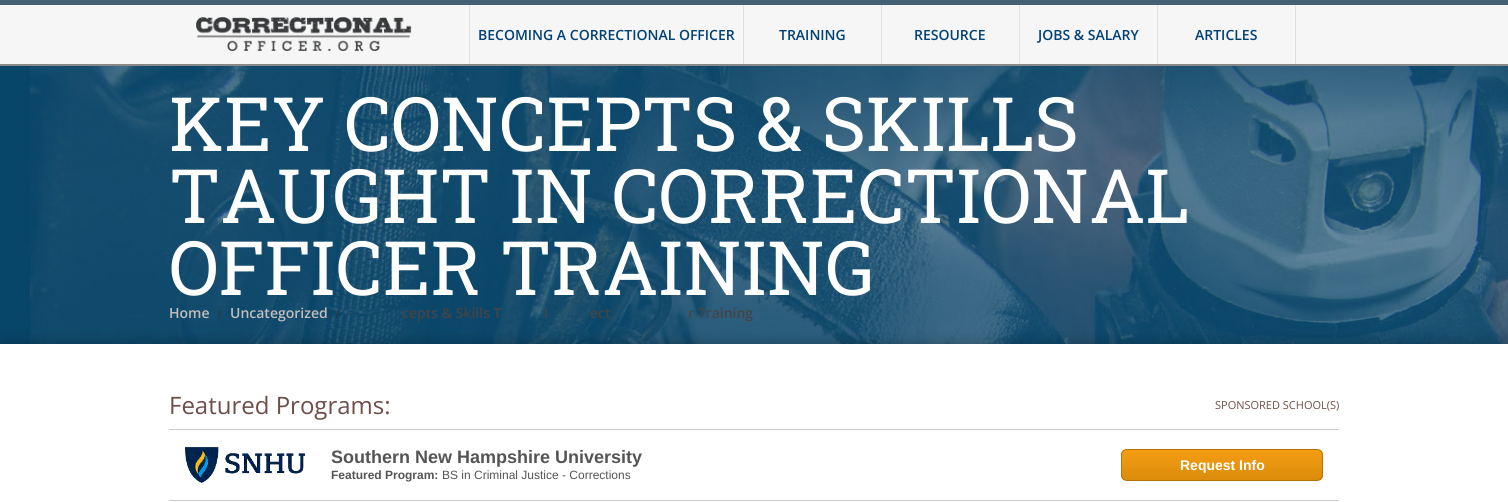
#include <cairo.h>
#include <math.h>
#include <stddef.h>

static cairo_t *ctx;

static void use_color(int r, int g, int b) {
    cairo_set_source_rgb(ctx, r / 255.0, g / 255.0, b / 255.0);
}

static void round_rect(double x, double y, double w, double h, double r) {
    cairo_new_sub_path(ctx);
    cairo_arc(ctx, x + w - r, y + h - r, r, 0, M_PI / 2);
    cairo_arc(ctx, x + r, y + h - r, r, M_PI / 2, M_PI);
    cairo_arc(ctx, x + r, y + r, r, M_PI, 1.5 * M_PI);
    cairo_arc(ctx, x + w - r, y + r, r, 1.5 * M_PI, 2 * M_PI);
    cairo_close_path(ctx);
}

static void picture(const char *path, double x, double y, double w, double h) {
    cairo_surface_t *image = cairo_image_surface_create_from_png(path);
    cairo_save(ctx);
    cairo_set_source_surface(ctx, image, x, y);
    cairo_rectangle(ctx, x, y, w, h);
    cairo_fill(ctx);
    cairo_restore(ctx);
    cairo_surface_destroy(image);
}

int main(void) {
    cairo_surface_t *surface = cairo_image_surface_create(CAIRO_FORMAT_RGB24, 1508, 502);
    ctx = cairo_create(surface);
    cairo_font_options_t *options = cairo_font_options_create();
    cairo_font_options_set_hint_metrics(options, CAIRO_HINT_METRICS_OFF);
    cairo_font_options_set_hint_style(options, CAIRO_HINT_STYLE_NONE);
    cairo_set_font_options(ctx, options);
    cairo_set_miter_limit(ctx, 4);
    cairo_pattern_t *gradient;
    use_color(255, 255, 255);
    cairo_paint(ctx);
    use_color(68, 96, 117);
    cairo_rectangle(ctx, 0, 0, 1508, 5);
    cairo_fill(ctx);
    use_color(246, 246, 246);
    cairo_rectangle(ctx, 0, 5, 1508, 59);
    cairo_fill(ctx);
    use_color(136, 136, 136);
    cairo_rectangle(ctx, 0, 64, 1508, 2);
    cairo_fill(ctx);
    picture("img1.png", 196, 17, 216, 34);
    use_color(224, 224, 224);
    cairo_rectangle(ctx, 743, 5, 1, 59);
    cairo_fill(ctx);
    cairo_rectangle(ctx, 469, 5, 1, 59);
    cairo_fill(ctx);
    cairo_select_font_face(ctx, "Open Sans SemiBold", CAIRO_FONT_SLANT_NORMAL, CAIRO_FONT_WEIGHT_NORMAL);
    cairo_set_font_size(ctx, 14);
    use_color(2, 65, 118);
    cairo_move_to(ctx, 478, 40);
    cairo_show_text(ctx, "BECOMING A CORRECTIONAL OFFICER");
    use_color(224, 224, 224);
    cairo_rectangle(ctx, 881, 5, 1, 59);
    cairo_fill(ctx);
    use_color(2, 65, 118);
    cairo_move_to(ctx, 779, 40);
    cairo_show_text(ctx, "TRAINING");
    use_color(224, 224, 224);
    cairo_rectangle(ctx, 1019, 5, 1, 59);
    cairo_fill(ctx);
    use_color(2, 65, 118);
    cairo_move_to(ctx, 914, 40);
    cairo_show_text(ctx, "RESOURCE");
    use_color(224, 224, 224);
    cairo_rectangle(ctx, 1157, 5, 1, 59);
    cairo_fill(ctx);
    use_color(2, 65, 118);
    cairo_move_to(ctx, 1038, 40);
    cairo_show_text(ctx, "JOBS & SALARY");
    use_color(224, 224, 224);
    cairo_rectangle(ctx, 1295, 5, 1, 59);
    cairo_fill(ctx);
    use_color(2, 65, 118);
    cairo_move_to(ctx, 1195, 40);
    cairo_show_text(ctx, "ARTICLES");
    picture("img2.png", 0, 66, 1508, 278);
    cairo_select_font_face(ctx, "Roboto Slab", CAIRO_FONT_SLANT_NORMAL, CAIRO_FONT_WEIGHT_NORMAL);
    cairo_set_font_size(ctx, 75);
    use_color(255, 255, 255);
    cairo_move_to(ctx, 169, 151);
    cairo_show_text(ctx, "KEY CONCEPTS & SKILLS");
    cairo_move_to(ctx, 169, 223);
    cairo_show_text(ctx, "TAUGHT IN CORRECTIONAL");
    cairo_move_to(ctx, 169, 295);
    cairo_show_text(ctx, "OFFICER TRAINING");
    cairo_select_font_face(ctx, "Open Sans SemiBold", CAIRO_FONT_SLANT_NORMAL, CAIRO_FONT_WEIGHT_NORMAL);
    cairo_set_font_size(ctx, 14);
    use_color(196, 190, 187);
    cairo_move_to(ctx, 169, 318);
    cairo_show_text(ctx, "Home");
    cairo_select_font_face(ctx, "Liberation Sans", CAIRO_FONT_SLANT_NORMAL, CAIRO_FONT_WEIGHT_NORMAL);
    cairo_set_font_size(ctx, 12);
    use_color(51, 51, 51);
    cairo_move_to(ctx, 218, 318);
    cairo_show_text(ctx, "/");
    cairo_select_font_face(ctx, "Open Sans SemiBold", CAIRO_FONT_SLANT_NORMAL, CAIRO_FONT_WEIGHT_NORMAL);
    cairo_set_font_size(ctx, 14);
    use_color(196, 190, 187);
    cairo_move_to(ctx, 230, 318);
    cairo_show_text(ctx, "Uncategorized");
    cairo_select_font_face(ctx, "Liberation Sans", CAIRO_FONT_SLANT_NORMAL, CAIRO_FONT_WEIGHT_NORMAL);
    cairo_set_font_size(ctx, 12);
    use_color(51, 51, 51);
    cairo_move_to(ctx, 336, 318);
    cairo_show_text(ctx, "/");
    cairo_select_font_face(ctx, "Open Sans SemiBold", CAIRO_FONT_SLANT_NORMAL, CAIRO_FONT_WEIGHT_NORMAL);
    cairo_set_font_size(ctx, 14);
    use_color(68, 68, 68);
    cairo_move_to(ctx, 402, 318);
    cairo_show_text(ctx, "cepts & Skills T");
    cairo_move_to(ctx, 544, 318);
    cairo_show_text(ctx, "i");
    cairo_move_to(ctx, 590, 318);
    cairo_show_text(ctx, "ect");
    cairo_move_to(ctx, 688, 318);
    cairo_show_text(ctx, "r Training");
    cairo_select_font_face(ctx, "Open Sans", CAIRO_FONT_SLANT_NORMAL, CAIRO_FONT_WEIGHT_NORMAL);
    cairo_set_font_size(ctx, 24);
    use_color(110, 78, 72);
    cairo_move_to(ctx, 169, 414);
    cairo_show_text(ctx, "Featured Programs:");
    cairo_set_font_size(ctx, 11);
    cairo_move_to(ctx, 1215, 409);
    cairo_show_text(ctx, "SPONSORED SCHOOL(S)");
    use_color(204, 204, 204);
    cairo_rectangle(ctx, 169, 429, 1170, 1);
    cairo_fill(ctx);
    picture("img3.png", 185, 447, 120, 36);
    cairo_select_font_face(ctx, "Liberation Sans", CAIRO_FONT_SLANT_NORMAL, CAIRO_FONT_WEIGHT_BOLD);
    cairo_set_font_size(ctx, 18);
    use_color(85, 85, 85);
    cairo_move_to(ctx, 331, 463);
    cairo_show_text(ctx, "Southern New Hampshire University");
    cairo_set_font_size(ctx, 12);
    cairo_move_to(ctx, 331, 479);
    cairo_show_text(ctx, "Featured Program:");
    cairo_select_font_face(ctx, "Liberation Sans", CAIRO_FONT_SLANT_NORMAL, CAIRO_FONT_WEIGHT_NORMAL);
    cairo_move_to(ctx, 442, 479);
    cairo_show_text(ctx, "BS in Criminal Justice - Corrections");
    cairo_save(ctx);
    round_rect(1121, 449, 202, 32, 6);
    cairo_clip(ctx);
    gradient = cairo_pattern_create_linear(1222, 450, 1222, 480);
    cairo_pattern_add_color_stop_rgba(gradient, 0.05, 0.953, 0.612, 0.071, 1);
    cairo_pattern_add_color_stop_rgba(gradient, 1, 0.859, 0.549, 0.043, 1);
    cairo_set_source(ctx, gradient);
    cairo_pattern_destroy(gradient);
    cairo_rectangle(ctx, 1121, 450, 202, 30);
    cairo_fill(ctx);
    cairo_restore(ctx);
    round_rect(1121.5, 449.5, 201, 31, 5.5);
    use_color(181, 115, 9);
    cairo_set_line_width(ctx, 1);
    cairo_stroke(ctx);
    cairo_select_font_face(ctx, "Liberation Sans", CAIRO_FONT_SLANT_NORMAL, CAIRO_FONT_WEIGHT_BOLD);
    cairo_set_font_size(ctx, 14);
    use_color(255, 255, 255);
    cairo_move_to(ctx, 1180, 470);
    cairo_show_text(ctx, "Request Info");
    use_color(204, 204, 204);
    cairo_rectangle(ctx, 169, 500, 1170, 1);
    cairo_fill(ctx);
    cairo_surface_write_to_png(surface, "result.png");
    cairo_font_options_destroy(options);
    cairo_destroy(ctx);
    cairo_surface_destroy(surface);
    return 0;
}
